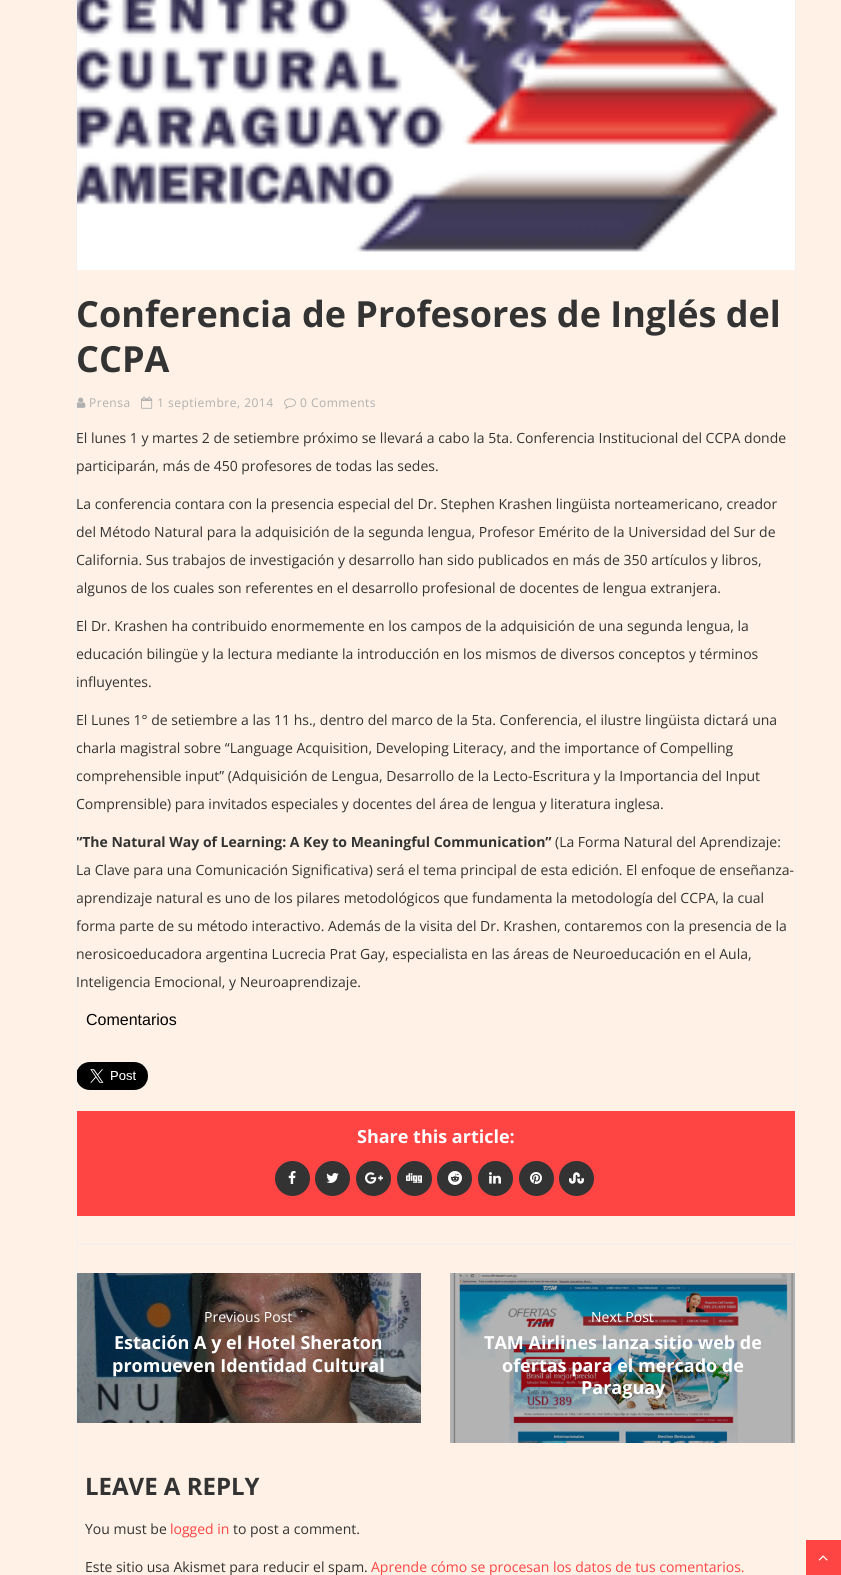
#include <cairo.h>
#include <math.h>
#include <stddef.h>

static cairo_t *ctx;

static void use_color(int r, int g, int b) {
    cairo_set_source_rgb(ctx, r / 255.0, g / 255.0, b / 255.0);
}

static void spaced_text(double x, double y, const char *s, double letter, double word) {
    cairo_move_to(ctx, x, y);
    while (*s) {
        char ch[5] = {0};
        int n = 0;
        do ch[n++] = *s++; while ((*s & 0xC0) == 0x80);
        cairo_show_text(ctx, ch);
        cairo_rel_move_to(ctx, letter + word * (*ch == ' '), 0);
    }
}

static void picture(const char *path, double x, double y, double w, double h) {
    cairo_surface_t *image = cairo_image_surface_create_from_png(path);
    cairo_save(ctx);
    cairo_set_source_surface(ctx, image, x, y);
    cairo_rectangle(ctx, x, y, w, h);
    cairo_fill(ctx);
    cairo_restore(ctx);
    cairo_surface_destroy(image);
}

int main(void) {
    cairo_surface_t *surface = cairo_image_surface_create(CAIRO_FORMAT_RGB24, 841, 1575);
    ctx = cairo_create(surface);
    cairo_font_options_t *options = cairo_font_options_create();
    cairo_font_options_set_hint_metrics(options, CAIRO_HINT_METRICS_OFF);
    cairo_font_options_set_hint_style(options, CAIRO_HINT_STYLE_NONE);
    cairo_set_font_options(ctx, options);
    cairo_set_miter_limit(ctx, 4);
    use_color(255, 241, 229);
    cairo_paint(ctx);
    picture("img1.png", 77, 0, 718, 270);
    cairo_select_font_face(ctx, "Open Sans", CAIRO_FONT_SLANT_NORMAL, CAIRO_FONT_WEIGHT_BOLD);
    cairo_set_font_size(ctx, 36);
    use_color(51, 51, 51);
    cairo_move_to(ctx, 76, 327);
    cairo_show_text(ctx, "Conferencia de Profesores de Inglés del");
    cairo_move_to(ctx, 76, 372);
    cairo_show_text(ctx, "CCPA");
    picture("img2.png", 77, 397, 9, 11);
    cairo_select_font_face(ctx, "Open Sans", CAIRO_FONT_SLANT_NORMAL, CAIRO_FONT_WEIGHT_NORMAL);
    cairo_set_font_size(ctx, 12);
    use_color(176, 176, 176);
    spaced_text(89, 407, "Prensa", 0.5, 0);
    picture("img3.png", 141, 396, 12, 13);
    spaced_text(157, 407, "1 septiembre, 2014", 0.5, 0);
    picture("img4.png", 284, 398, 12, 11);
    spaced_text(300, 407, "0 Comments", 0.5, 0);
    cairo_set_font_size(ctx, 14);
    use_color(51, 51, 51);
    cairo_move_to(ctx, 76, 443);
    cairo_show_text(ctx, "El lunes 1 y martes 2 de setiembre próximo se llevará a cabo la 5ta. Conferencia Institucional del CCPA donde");
    cairo_move_to(ctx, 76, 471);
    cairo_show_text(ctx, "participarán, más de 450 profesores de todas las sedes.");
    cairo_move_to(ctx, 76, 509);
    cairo_show_text(ctx, "La conferencia contara con la presencia especial del Dr. Stephen Krashen lingüista norteamericano, creador");
    cairo_move_to(ctx, 76, 537);
    cairo_show_text(ctx, "del Método Natural para la adquisición de la segunda lengua, Profesor Emérito de la Universidad del Sur de");
    cairo_move_to(ctx, 76, 565);
    cairo_show_text(ctx, "California. Sus trabajos de investigación y desarrollo han sido publicados en más de 350 artículos y libros,");
    cairo_move_to(ctx, 76, 593);
    cairo_show_text(ctx, "algunos de los cuales son referentes en el desarrollo profesional de docentes de lengua extranjera.");
    cairo_move_to(ctx, 76, 631);
    cairo_show_text(ctx, "El Dr. Krashen ha contribuido enormemente en los campos de la adquisición de una segunda lengua, la");
    cairo_move_to(ctx, 76, 659);
    cairo_show_text(ctx, "educación bilingüe y la lectura mediante la introducción en los mismos de diversos conceptos y términos");
    cairo_move_to(ctx, 76, 687);
    cairo_show_text(ctx, "influyentes.");
    cairo_move_to(ctx, 76, 725);
    cairo_show_text(ctx, "El Lunes 1° de setiembre a las 11 hs., dentro del marco de la 5ta. Conferencia, el ilustre lingüista dictará una");
    cairo_move_to(ctx, 76, 753);
    cairo_show_text(ctx, "charla magistral sobre “Language Acquisition, Developing Literacy, and the importance of Compelling");
    cairo_move_to(ctx, 76, 781);
    cairo_show_text(ctx, "comprehensible input” (Adquisición de Lengua, Desarrollo de la Lecto-Escritura y la Importancia del Input");
    cairo_move_to(ctx, 76, 809);
    cairo_show_text(ctx, "Comprensible) para invitados especiales y docentes del área de lengua y literatura inglesa.");
    cairo_select_font_face(ctx, "Open Sans", CAIRO_FONT_SLANT_NORMAL, CAIRO_FONT_WEIGHT_BOLD);
    cairo_move_to(ctx, 76, 847);
    cairo_show_text(ctx, "“The Natural Way of Learning: A Key to Meaningful Communication”");
    cairo_select_font_face(ctx, "Open Sans", CAIRO_FONT_SLANT_NORMAL, CAIRO_FONT_WEIGHT_NORMAL);
    cairo_move_to(ctx, 555, 847);
    cairo_show_text(ctx, "(La Forma Natural del Aprendizaje:");
    cairo_move_to(ctx, 76, 875);
    cairo_show_text(ctx, "La Clave para una Comunicación Significativa) será el tema principal de esta edición. El enfoque de enseñanza-");
    cairo_move_to(ctx, 76, 903);
    cairo_show_text(ctx, "aprendizaje natural es uno de los pilares metodológicos que fundamenta la metodología del CCPA, la cual");
    cairo_move_to(ctx, 76, 931);
    cairo_show_text(ctx, "forma parte de su método interactivo. Además de la visita del Dr. Krashen, contaremos con la presencia de la");
    cairo_move_to(ctx, 76, 959);
    cairo_show_text(ctx, "nerosicoeducadora argentina Lucrecia Prat Gay, especialista en las áreas de Neuroeducación en el Aula,");
    cairo_move_to(ctx, 76, 987);
    cairo_show_text(ctx, "Inteligencia Emocional, y Neuroaprendizaje.");
    cairo_select_font_face(ctx, "Liberation Sans", CAIRO_FONT_SLANT_NORMAL, CAIRO_FONT_WEIGHT_NORMAL);
    cairo_set_font_size(ctx, 16);
    use_color(0, 0, 0);
    cairo_move_to(ctx, 86, 1025);
    cairo_show_text(ctx, "Comentarios");
    picture("img5.png", 77, 1062, 71, 28);
    use_color(255, 68, 68);
    cairo_rectangle(ctx, 77, 1111, 718, 105);
    cairo_fill(ctx);
    cairo_select_font_face(ctx, "Open Sans", CAIRO_FONT_SLANT_NORMAL, CAIRO_FONT_WEIGHT_BOLD);
    cairo_set_font_size(ctx, 18);
    use_color(255, 255, 255);
    cairo_move_to(ctx, 357, 1143);
    cairo_show_text(ctx, "Share this article:");
    use_color(52, 51, 52);
    cairo_new_path(ctx);
    cairo_arc(ctx, 292.5, 1178.5, 17.5, 0, 2 * M_PI);
    cairo_fill(ctx);
    picture("img6.png", 288, 1171, 8, 13);
    cairo_arc(ctx, 332.5, 1178.5, 17.5, 0, 2 * M_PI);
    cairo_fill(ctx);
    picture("img7.png", 326, 1173, 13, 10);
    cairo_arc(ctx, 373.5, 1178.5, 17.5, 0, 2 * M_PI);
    cairo_fill(ctx);
    picture("img8.png", 365, 1172, 18, 12);
    cairo_arc(ctx, 414.5, 1178.5, 17.5, 0, 2 * M_PI);
    cairo_fill(ctx);
    picture("img9.png", 406, 1173, 16, 10);
    cairo_arc(ctx, 454.5, 1178.5, 17.5, 0, 2 * M_PI);
    cairo_fill(ctx);
    picture("img10.png", 448, 1171, 14, 14);
    cairo_arc(ctx, 495.5, 1178.5, 17.5, 0, 2 * M_PI);
    cairo_fill(ctx);
    picture("img11.png", 489, 1172, 12, 12);
    cairo_arc(ctx, 536.5, 1178.5, 17.5, 0, 2 * M_PI);
    cairo_fill(ctx);
    picture("img12.png", 530, 1172, 12, 12);
    cairo_arc(ctx, 576.5, 1178.5, 17.5, 0, 2 * M_PI);
    cairo_fill(ctx);
    picture("img13.png", 569, 1172, 15, 12);
    use_color(240, 240, 240);
    cairo_rectangle(ctx, 76, 1244, 720, 1);
    cairo_fill(ctx);
    picture("img14.png", 77, 1273, 344, 150);
    cairo_select_font_face(ctx, "Open Sans", CAIRO_FONT_SLANT_NORMAL, CAIRO_FONT_WEIGHT_NORMAL);
    cairo_set_font_size(ctx, 14);
    use_color(255, 255, 255);
    cairo_move_to(ctx, 204, 1322);
    cairo_show_text(ctx, "Previous Post");
    cairo_select_font_face(ctx, "Open Sans", CAIRO_FONT_SLANT_NORMAL, CAIRO_FONT_WEIGHT_BOLD);
    cairo_set_font_size(ctx, 18);
    cairo_move_to(ctx, 114, 1349);
    cairo_show_text(ctx, "Estación A y el Hotel Sheraton");
    cairo_move_to(ctx, 112, 1372);
    cairo_show_text(ctx, "promueven Identidad Cultural");
    picture("img15.png", 450, 1273, 345, 170);
    cairo_select_font_face(ctx, "Open Sans", CAIRO_FONT_SLANT_NORMAL, CAIRO_FONT_WEIGHT_NORMAL);
    cairo_set_font_size(ctx, 14);
    cairo_move_to(ctx, 591, 1322);
    cairo_show_text(ctx, "Next Post");
    cairo_select_font_face(ctx, "Open Sans", CAIRO_FONT_SLANT_NORMAL, CAIRO_FONT_WEIGHT_BOLD);
    cairo_set_font_size(ctx, 18);
    cairo_move_to(ctx, 484, 1349);
    cairo_show_text(ctx, "TAM Airlines lanza sitio web de");
    cairo_move_to(ctx, 502, 1372);
    cairo_show_text(ctx, "ofertas para el mercado de");
    cairo_move_to(ctx, 581, 1394);
    cairo_show_text(ctx, "Paraguay");
    cairo_rectangle(ctx, 76.5, -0.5, 719, 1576);
    use_color(240, 240, 240);
    cairo_set_line_width(ctx, 1);
    cairo_stroke(ctx);
    cairo_set_font_size(ctx, 24);
    use_color(51, 51, 51);
    cairo_move_to(ctx, 85, 1495);
    cairo_show_text(ctx, "LEAVE A REPLY");
    cairo_select_font_face(ctx, "Open Sans", CAIRO_FONT_SLANT_NORMAL, CAIRO_FONT_WEIGHT_NORMAL);
    cairo_set_font_size(ctx, 14);
    cairo_move_to(ctx, 85, 1534);
    cairo_show_text(ctx, "You must be");
    use_color(255, 68, 68);
    cairo_move_to(ctx, 170, 1534);
    cairo_show_text(ctx, "logged in");
    use_color(51, 51, 51);
    cairo_move_to(ctx, 233, 1534);
    cairo_show_text(ctx, "to post a comment.");
    cairo_move_to(ctx, 85, 1572);
    cairo_show_text(ctx, "Este sitio usa Akismet para reducir el spam.");
    use_color(255, 68, 68);
    cairo_move_to(ctx, 371, 1572);
    cairo_show_text(ctx, "Aprende cómo se procesan los datos de tus comentarios.");
    cairo_rectangle(ctx, 806, 1540, 35, 35);
    cairo_fill(ctx);
    picture("img16.png", 818, 1555, 10, 6);
    cairo_surface_write_to_png(surface, "result.png");
    cairo_font_options_destroy(options);
    cairo_destroy(ctx);
    cairo_surface_destroy(surface);
    return 0;
}
